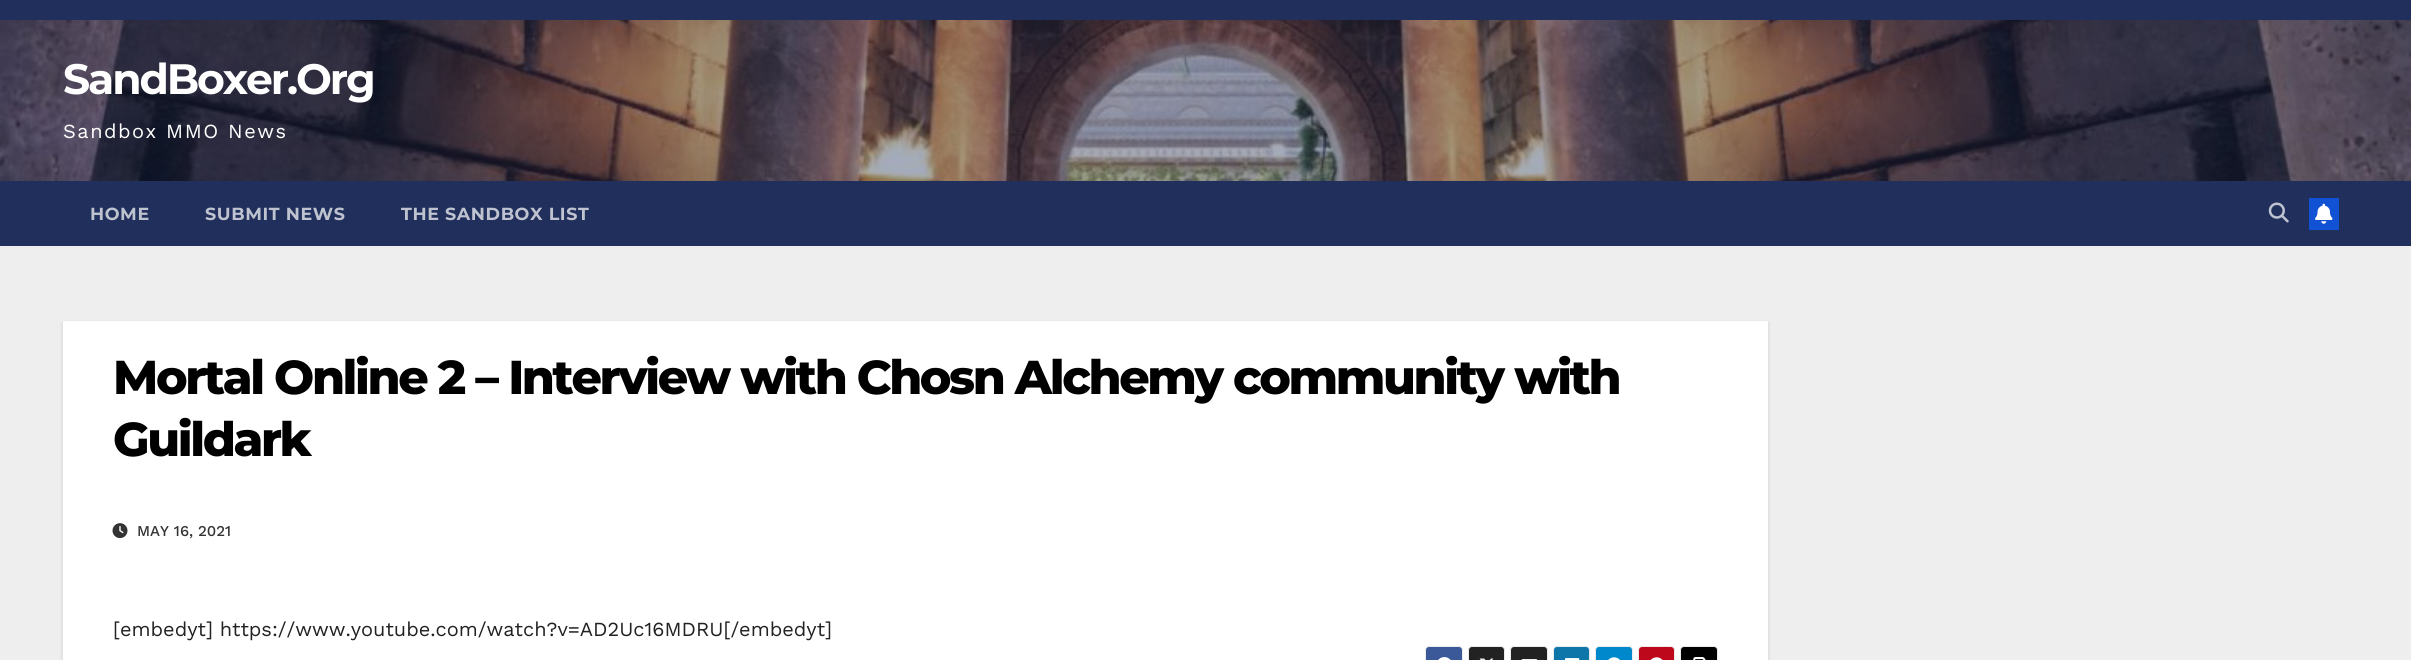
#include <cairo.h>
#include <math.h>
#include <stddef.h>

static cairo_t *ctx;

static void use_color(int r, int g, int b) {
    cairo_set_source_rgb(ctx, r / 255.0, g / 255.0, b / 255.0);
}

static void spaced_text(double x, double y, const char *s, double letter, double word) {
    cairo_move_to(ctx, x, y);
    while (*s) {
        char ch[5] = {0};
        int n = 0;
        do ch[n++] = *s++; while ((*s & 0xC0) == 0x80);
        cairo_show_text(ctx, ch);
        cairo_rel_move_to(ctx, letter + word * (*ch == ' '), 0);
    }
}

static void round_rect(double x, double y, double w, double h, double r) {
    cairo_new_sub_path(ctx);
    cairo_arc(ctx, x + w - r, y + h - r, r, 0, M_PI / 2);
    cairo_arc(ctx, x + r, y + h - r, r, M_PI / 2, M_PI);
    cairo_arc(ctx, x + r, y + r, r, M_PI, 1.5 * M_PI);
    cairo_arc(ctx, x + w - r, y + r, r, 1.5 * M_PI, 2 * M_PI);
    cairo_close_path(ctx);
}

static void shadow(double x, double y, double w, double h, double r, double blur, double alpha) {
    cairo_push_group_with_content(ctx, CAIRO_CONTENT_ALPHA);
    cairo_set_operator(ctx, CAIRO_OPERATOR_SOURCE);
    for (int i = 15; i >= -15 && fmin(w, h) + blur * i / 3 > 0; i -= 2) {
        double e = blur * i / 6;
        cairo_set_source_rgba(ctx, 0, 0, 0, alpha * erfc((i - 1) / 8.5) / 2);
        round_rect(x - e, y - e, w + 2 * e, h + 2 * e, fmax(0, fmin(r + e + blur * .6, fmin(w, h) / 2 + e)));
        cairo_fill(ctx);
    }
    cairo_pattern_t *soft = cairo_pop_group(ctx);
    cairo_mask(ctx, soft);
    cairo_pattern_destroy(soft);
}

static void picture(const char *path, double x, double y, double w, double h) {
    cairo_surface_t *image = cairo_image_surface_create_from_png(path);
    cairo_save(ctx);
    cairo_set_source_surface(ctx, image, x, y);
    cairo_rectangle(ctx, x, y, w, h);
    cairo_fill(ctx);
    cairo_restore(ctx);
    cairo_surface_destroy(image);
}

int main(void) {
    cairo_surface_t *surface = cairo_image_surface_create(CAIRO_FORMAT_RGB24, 2411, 660);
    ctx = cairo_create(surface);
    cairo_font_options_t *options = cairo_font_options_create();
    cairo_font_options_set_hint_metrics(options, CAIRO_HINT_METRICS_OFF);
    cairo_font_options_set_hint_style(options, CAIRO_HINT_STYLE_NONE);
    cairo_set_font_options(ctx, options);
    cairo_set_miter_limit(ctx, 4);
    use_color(238, 238, 238);
    cairo_paint(ctx);
    use_color(32, 47, 91);
    cairo_rectangle(ctx, 0, 0, 2411, 20);
    cairo_fill(ctx);
    picture("img1.png", 0, 20, 2411, 161);
    cairo_select_font_face(ctx, "Montserrat", CAIRO_FONT_SLANT_NORMAL, CAIRO_FONT_WEIGHT_BOLD);
    cairo_set_font_size(ctx, 42.5);
    use_color(255, 255, 255);
    spaced_text(63, 94, "SandBoxer.Org", -2.1, 0);
    cairo_select_font_face(ctx, "Work Sans", CAIRO_FONT_SLANT_NORMAL, CAIRO_FONT_WEIGHT_NORMAL);
    cairo_set_font_size(ctx, 20);
    spaced_text(63, 138, "Sandbox MMO News", 1.5, 0);
    use_color(32, 47, 91);
    cairo_rectangle(ctx, 0, 181, 2411, 65);
    cairo_fill(ctx);
    cairo_select_font_face(ctx, "Montserrat", CAIRO_FONT_SLANT_NORMAL, CAIRO_FONT_WEIGHT_BOLD);
    cairo_set_font_size(ctx, 17.5);
    use_color(190, 195, 207);
    spaced_text(90, 220, "HOME", 0.6, 0);
    spaced_text(205, 220, "SUBMIT NEWS", 0.6, 0);
    spaced_text(401, 220, "THE SANDBOX LIST", 0.6, 0);
    picture("img2.png", 2268, 202, 21, 21);
    use_color(17, 81, 211);
    cairo_rectangle(ctx, 2309, 198, 30, 32);
    cairo_fill(ctx);
    picture("img3.png", 2315, 203, 18, 21);
    use_color(0, 0, 0);
    shadow(63, 323, 1705, 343, 0, 2, 0.15);
    use_color(255, 255, 255);
    cairo_rectangle(ctx, 63, 321, 1705, 339);
    cairo_fill(ctx);
    cairo_select_font_face(ctx, "Montserrat ExtraBold", CAIRO_FONT_SLANT_NORMAL, CAIRO_FONT_WEIGHT_NORMAL);
    cairo_set_font_size(ctx, 47.5);
    use_color(0, 0, 0);
    spaced_text(113, 394, "Mortal Online 2 – Interview with Chosn Alchemy community with", -2.38, 0);
    spaced_text(113, 456, "Guildark", -2.38, 0);
    picture("img4.png", 112, 523, 16, 16);
    cairo_select_font_face(ctx, "Work Sans Medium", CAIRO_FONT_SLANT_NORMAL, CAIRO_FONT_WEIGHT_NORMAL);
    cairo_set_font_size(ctx, 15);
    use_color(51, 51, 51);
    cairo_move_to(ctx, 137, 536);
    cairo_show_text(ctx, "MAY 16, 2021");
    cairo_select_font_face(ctx, "Work Sans", CAIRO_FONT_SLANT_NORMAL, CAIRO_FONT_WEIGHT_NORMAL);
    cairo_set_font_size(ctx, 20);
    use_color(34, 34, 34);
    cairo_move_to(ctx, 113, 636);
    cairo_show_text(ctx, "[embedyt] https://www.youtube.com/watch?v=AD2Uc16MDRU[/embedyt]");
    use_color(59, 89, 152);
    round_rect(1425.5, 646.5, 37, 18, 3.5);
    cairo_fill_preserve(ctx);
    use_color(235, 235, 235);
    cairo_set_line_width(ctx, 1);
    cairo_stroke(ctx);
    picture("img5.png", 1438, 657, 13, 3);
    use_color(34, 34, 34);
    round_rect(1468.5, 646.5, 36, 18, 3.5);
    cairo_fill_preserve(ctx);
    use_color(235, 235, 235);
    cairo_stroke(ctx);
    picture("img6.png", 1479, 658, 15, 2);
    use_color(34, 34, 34);
    round_rect(1510.5, 646.5, 37, 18, 3.5);
    cairo_fill_preserve(ctx);
    use_color(235, 235, 235);
    cairo_stroke(ctx);
    picture("img7.png", 1521, 659, 17, 1);
    use_color(14, 118, 168);
    round_rect(1553.5, 646.5, 36, 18, 3.5);
    cairo_fill_preserve(ctx);
    use_color(235, 235, 235);
    cairo_stroke(ctx);
    picture("img8.png", 1565, 658, 15, 2);
    use_color(0, 136, 204);
    round_rect(1595.5, 646.5, 37, 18, 3.5);
    cairo_fill_preserve(ctx);
    use_color(235, 235, 235);
    cairo_stroke(ctx);
    picture("img9.png", 1608, 657, 12, 3);
    use_color(189, 8, 28);
    round_rect(1638.5, 646.5, 36, 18, 3.5);
    cairo_fill_preserve(ctx);
    use_color(235, 235, 235);
    cairo_stroke(ctx);
    picture("img10.png", 1650, 657, 13, 3);
    use_color(0, 0, 0);
    round_rect(1680.5, 646.5, 37, 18, 3.5);
    cairo_fill_preserve(ctx);
    use_color(235, 235, 235);
    cairo_stroke(ctx);
    picture("img11.png", 1693, 657, 13, 3);
    cairo_surface_write_to_png(surface, "result.png");
    cairo_font_options_destroy(options);
    cairo_destroy(ctx);
    cairo_surface_destroy(surface);
    return 0;
}
